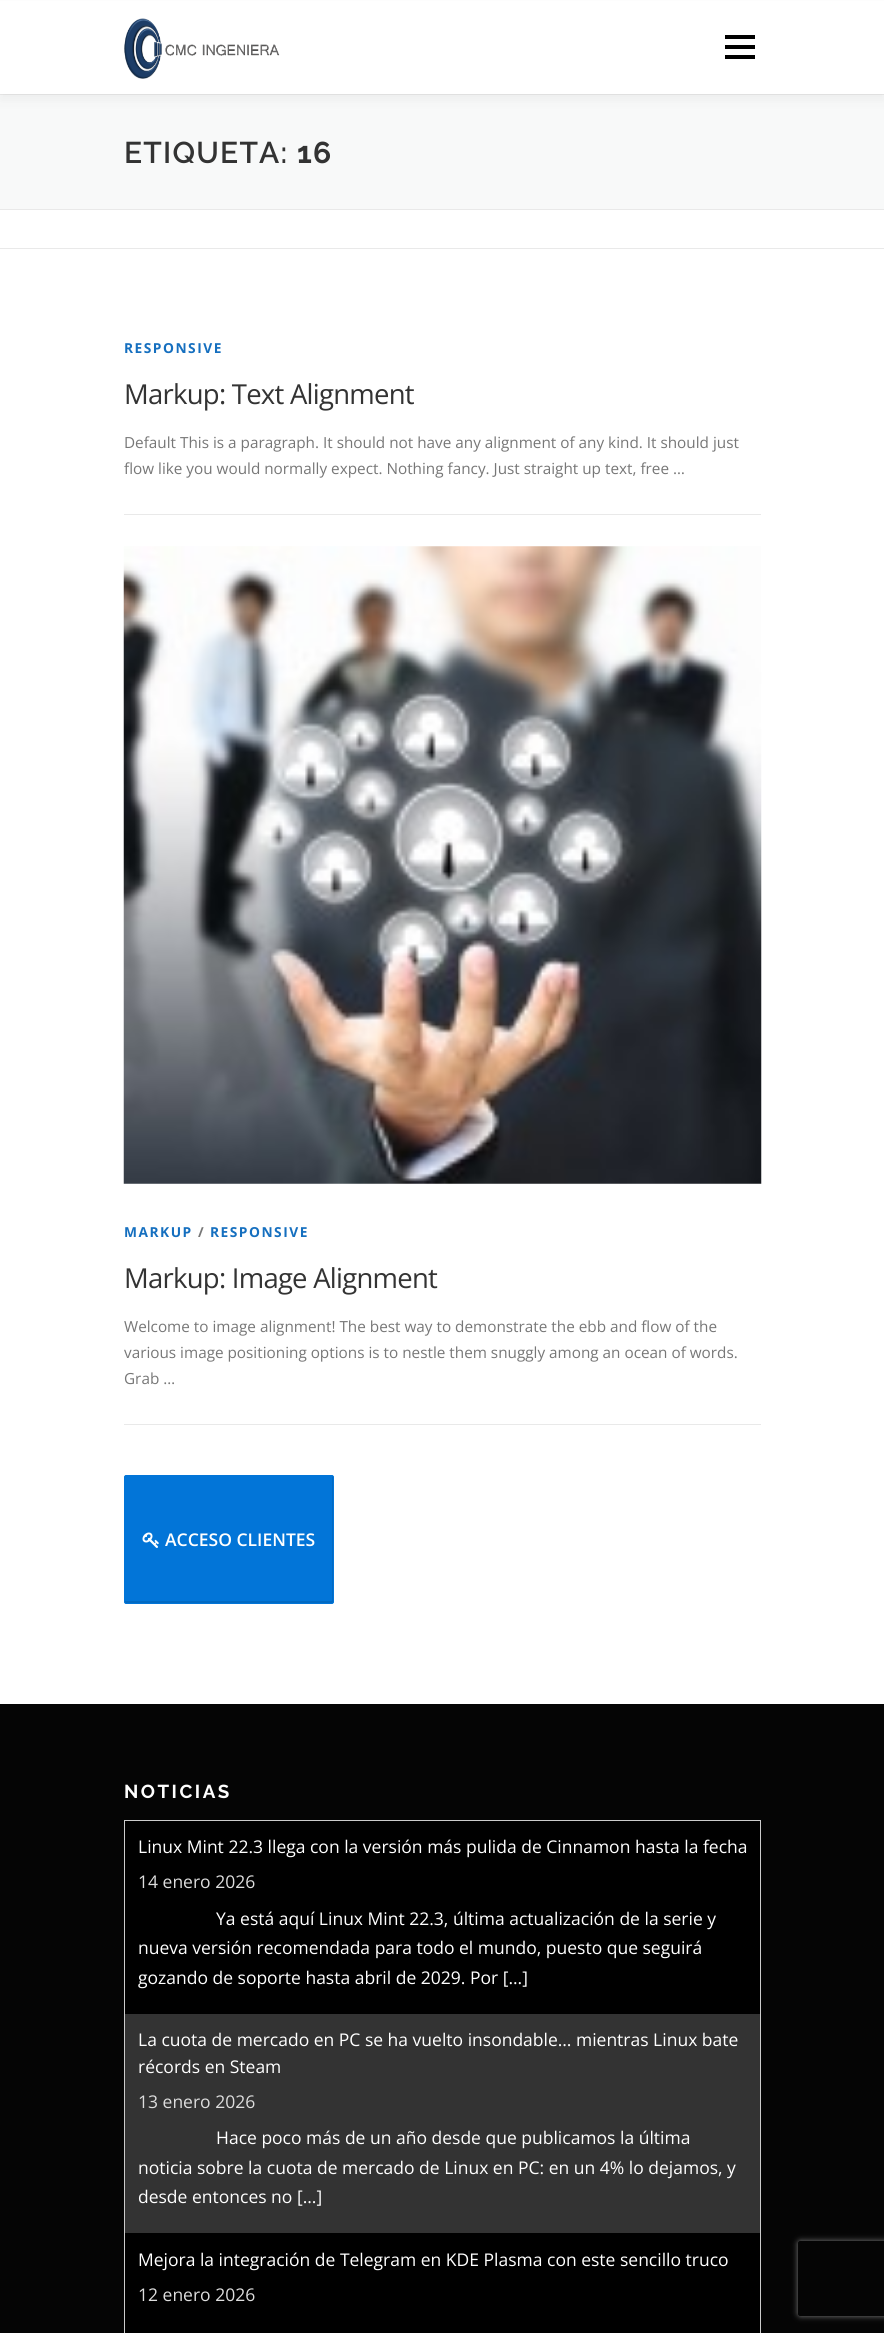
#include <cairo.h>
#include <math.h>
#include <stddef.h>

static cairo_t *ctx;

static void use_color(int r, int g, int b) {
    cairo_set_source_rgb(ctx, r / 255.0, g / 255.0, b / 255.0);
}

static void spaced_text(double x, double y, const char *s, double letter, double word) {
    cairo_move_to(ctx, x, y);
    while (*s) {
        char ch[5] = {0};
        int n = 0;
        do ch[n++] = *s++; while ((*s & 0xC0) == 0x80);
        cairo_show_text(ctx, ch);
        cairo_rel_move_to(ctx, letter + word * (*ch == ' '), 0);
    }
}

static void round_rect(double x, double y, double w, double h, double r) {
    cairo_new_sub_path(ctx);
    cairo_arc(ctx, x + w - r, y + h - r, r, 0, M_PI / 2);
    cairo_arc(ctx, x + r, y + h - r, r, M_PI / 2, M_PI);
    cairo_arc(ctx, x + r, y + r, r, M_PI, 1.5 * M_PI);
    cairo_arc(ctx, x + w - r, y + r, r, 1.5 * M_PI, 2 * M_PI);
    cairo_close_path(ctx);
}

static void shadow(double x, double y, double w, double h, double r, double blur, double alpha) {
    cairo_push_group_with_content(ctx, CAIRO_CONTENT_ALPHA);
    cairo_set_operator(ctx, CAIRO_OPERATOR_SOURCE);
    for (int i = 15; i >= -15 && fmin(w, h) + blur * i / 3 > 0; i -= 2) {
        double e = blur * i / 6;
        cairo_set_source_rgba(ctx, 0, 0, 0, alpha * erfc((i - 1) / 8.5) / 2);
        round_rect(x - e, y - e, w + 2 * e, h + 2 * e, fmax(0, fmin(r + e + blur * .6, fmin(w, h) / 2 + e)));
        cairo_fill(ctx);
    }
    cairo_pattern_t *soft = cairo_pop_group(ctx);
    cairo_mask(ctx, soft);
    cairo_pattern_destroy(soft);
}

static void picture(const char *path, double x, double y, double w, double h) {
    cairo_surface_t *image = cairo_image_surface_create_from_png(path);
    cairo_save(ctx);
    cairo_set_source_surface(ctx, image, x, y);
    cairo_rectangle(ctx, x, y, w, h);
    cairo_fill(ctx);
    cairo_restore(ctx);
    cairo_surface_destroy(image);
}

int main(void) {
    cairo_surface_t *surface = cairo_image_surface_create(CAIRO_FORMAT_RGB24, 884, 2333);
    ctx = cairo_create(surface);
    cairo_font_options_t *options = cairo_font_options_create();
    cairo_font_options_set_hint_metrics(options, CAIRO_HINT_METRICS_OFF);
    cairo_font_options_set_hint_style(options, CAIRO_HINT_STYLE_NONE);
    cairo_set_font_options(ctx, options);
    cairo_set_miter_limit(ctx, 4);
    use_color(255, 255, 255);
    cairo_paint(ctx);
    use_color(248, 249, 249);
    cairo_rectangle(ctx, 0, 95, 884, 114);
    cairo_fill(ctx);
    use_color(233, 233, 233);
    cairo_rectangle(ctx, 0, 94, 884, 1);
    cairo_fill(ctx);
    use_color(50, 50, 50);
    shadow(0, 6, 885, 94, 0, 6, 0.06);
    use_color(255, 255, 255);
    cairo_rectangle(ctx, 0, 1, 884, 93);
    cairo_fill(ctx);
    picture("img1.png", 124, 18, 156, 61);
    use_color(0, 0, 0);
    cairo_rectangle(ctx, 725, 45, 30, 4);
    cairo_fill(ctx);
    cairo_rectangle(ctx, 725, 35, 30, 4);
    cairo_fill(ctx);
    cairo_rectangle(ctx, 725, 55, 30, 4);
    cairo_fill(ctx);
    use_color(233, 233, 233);
    cairo_rectangle(ctx, 0, 209, 884, 1);
    cairo_fill(ctx);
    cairo_select_font_face(ctx, "Raleway SemiBold", CAIRO_FONT_SLANT_NORMAL, CAIRO_FONT_WEIGHT_NORMAL);
    cairo_set_font_size(ctx, 30);
    use_color(51, 51, 51);
    spaced_text(124, 163, "ETIQUETA:", 1.25, 0);
    cairo_select_font_face(ctx, "Raleway", CAIRO_FONT_SLANT_NORMAL, CAIRO_FONT_WEIGHT_BOLD);
    spaced_text(297, 163, "16", 1.25, 0);
    use_color(233, 233, 233);
    cairo_rectangle(ctx, 0, 248, 884, 1);
    cairo_fill(ctx);
    cairo_select_font_face(ctx, "Open Sans", CAIRO_FONT_SLANT_NORMAL, CAIRO_FONT_WEIGHT_BOLD);
    cairo_set_font_size(ctx, 13.75);
    use_color(21, 111, 191);
    spaced_text(124, 353, "RESPONSIVE", 1.5, 0);
    cairo_select_font_face(ctx, "Open Sans", CAIRO_FONT_SLANT_NORMAL, CAIRO_FONT_WEIGHT_NORMAL);
    cairo_set_font_size(ctx, 27.5);
    use_color(51, 51, 51);
    spaced_text(124, 404, "Markup: Text Alignment", -0.75, 0);
    cairo_set_font_size(ctx, 15.3);
    use_color(119, 119, 119);
    cairo_move_to(ctx, 124, 448);
    cairo_show_text(ctx, "Default This is a paragraph. It should not have any alignment of any kind. It should just");
    cairo_move_to(ctx, 124, 474);
    cairo_show_text(ctx, "flow like you would normally expect. Nothing fancy. Just straight up text, free …");
    use_color(233, 233, 233);
    cairo_rectangle(ctx, 124, 514, 637, 1);
    cairo_fill(ctx);
    cairo_rectangle(ctx, 124, 1424, 637, 1);
    cairo_fill(ctx);
    picture("img2.png", 123, 546, 639, 638);
    cairo_select_font_face(ctx, "Open Sans", CAIRO_FONT_SLANT_NORMAL, CAIRO_FONT_WEIGHT_BOLD);
    cairo_set_font_size(ctx, 13.75);
    use_color(21, 111, 191);
    spaced_text(124, 1237, "MARKUP", 1.5, 0);
    use_color(119, 119, 119);
    spaced_text(198, 1237, "/", 1.5, 0);
    use_color(21, 111, 191);
    spaced_text(210, 1237, "RESPONSIVE", 1.5, 0);
    cairo_select_font_face(ctx, "Open Sans", CAIRO_FONT_SLANT_NORMAL, CAIRO_FONT_WEIGHT_NORMAL);
    cairo_set_font_size(ctx, 27.5);
    use_color(51, 51, 51);
    spaced_text(124, 1288, "Markup: Image Alignment", -0.75, 0);
    cairo_set_font_size(ctx, 15.3);
    use_color(119, 119, 119);
    cairo_move_to(ctx, 124, 1332);
    cairo_show_text(ctx, "Welcome to image alignment! The best way to demonstrate the ebb and flow of the");
    cairo_move_to(ctx, 124, 1358);
    cairo_show_text(ctx, "various image positioning options is to nestle them snuggly among an ocean of words.");
    cairo_move_to(ctx, 124, 1384);
    cairo_show_text(ctx, "Grab …");
    use_color(2, 117, 216);
    round_rect(124, 1475, 210, 129, 2.5);
    cairo_fill(ctx);
    use_color(2, 105, 194);
    cairo_new_path(ctx);
    cairo_move_to(ctx, 125, 1600);
    cairo_line_to(ctx, 125, 1602);
    cairo_curve_to(ctx, 125, 1603, 125, 1603, 126, 1603);
    cairo_line_to(ctx, 332, 1603);
    cairo_curve_to(ctx, 333, 1603, 333, 1603, 333, 1602);
    cairo_line_to(ctx, 333, 1477);
    cairo_curve_to(ctx, 333, 1476, 333, 1476, 332, 1476);
    cairo_line_to(ctx, 332, 1600);
    cairo_curve_to(ctx, 332, 1601, 332, 1601, 331, 1601);
    cairo_line_to(ctx, 126, 1601);
    cairo_curve_to(ctx, 126, 1601, 125, 1601, 125, 1600);
    cairo_close_path(ctx);
    cairo_fill(ctx);
    round_rect(124.5, 1475.5, 209, 128, 2);
    use_color(2, 117, 216);
    cairo_set_line_width(ctx, 1);
    cairo_stroke(ctx);
    picture("img3.png", 142, 1532, 17, 16);
    cairo_select_font_face(ctx, "Open Sans SemiBold", CAIRO_FONT_SLANT_NORMAL, CAIRO_FONT_WEIGHT_NORMAL);
    cairo_set_font_size(ctx, 17.5);
    use_color(255, 255, 255);
    cairo_move_to(ctx, 165, 1546);
    cairo_show_text(ctx, "ACCESO CLIENTES");
    use_color(5, 5, 5);
    cairo_rectangle(ctx, 0, 1704, 884, 629);
    cairo_fill(ctx);
    cairo_select_font_face(ctx, "Raleway", CAIRO_FONT_SLANT_NORMAL, CAIRO_FONT_WEIGHT_BOLD);
    cairo_set_font_size(ctx, 18.75);
    use_color(255, 255, 255);
    spaced_text(124, 1798, "NOTICIAS", 2.5, 0);
    use_color(0, 0, 0);
    cairo_rectangle(ctx, 124.5, 1820.5, 636, 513);
    cairo_fill_preserve(ctx);
    use_color(204, 204, 204);
    cairo_stroke(ctx);
    cairo_select_font_face(ctx, "Open Sans", CAIRO_FONT_SLANT_NORMAL, CAIRO_FONT_WEIGHT_NORMAL);
    cairo_set_font_size(ctx, 17.5);
    use_color(255, 255, 255);
    cairo_move_to(ctx, 138, 1853);
    cairo_show_text(ctx, "Linux Mint 22.3 llega con la versión más pulida de Cinnamon hasta la fecha");
    use_color(221, 221, 221);
    cairo_move_to(ctx, 138, 1888);
    cairo_show_text(ctx, "14 enero 2026");
    use_color(255, 255, 255);
    cairo_move_to(ctx, 216, 1925);
    cairo_show_text(ctx, "Ya está aquí Linux Mint 22.3, última actualización de la serie y");
    cairo_move_to(ctx, 138, 1954);
    cairo_show_text(ctx, "nueva versión recomendada para todo el mundo, puesto que seguirá");
    cairo_move_to(ctx, 138, 1984);
    cairo_show_text(ctx, "gozando de soporte hasta abril de 2029. Por [...]");
    use_color(51, 51, 51);
    cairo_rectangle(ctx, 125, 2014, 635, 219);
    cairo_fill(ctx);
    use_color(255, 255, 255);
    cairo_move_to(ctx, 138, 2046);
    cairo_show_text(ctx, "La cuota de mercado en PC se ha vuelto insondable… mientras Linux bate");
    cairo_move_to(ctx, 138, 2073);
    cairo_show_text(ctx, "récords en Steam");
    use_color(221, 221, 221);
    cairo_move_to(ctx, 138, 2108);
    cairo_show_text(ctx, "13 enero 2026");
    use_color(255, 255, 255);
    cairo_move_to(ctx, 216, 2144);
    cairo_show_text(ctx, "Hace poco más de un año desde que publicamos la última");
    cairo_move_to(ctx, 138, 2174);
    cairo_show_text(ctx, "noticia sobre la cuota de mercado de Linux en PC: en un 4% lo dejamos, y");
    cairo_move_to(ctx, 138, 2203);
    cairo_show_text(ctx, "desde entonces no [...]");
    cairo_move_to(ctx, 138, 2266);
    cairo_show_text(ctx, "Mejora la integración de Telegram en KDE Plasma con este sencillo truco");
    use_color(221, 221, 221);
    cairo_move_to(ctx, 138, 2301);
    cairo_show_text(ctx, "12 enero 2026");
    cairo_save(ctx);
    cairo_set_fill_rule(ctx, CAIRO_FILL_RULE_EVEN_ODD);
    cairo_new_path(ctx);
    cairo_move_to(ctx, 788, 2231);
    cairo_line_to(ctx, 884, 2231);
    cairo_line_to(ctx, 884, 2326);
    cairo_line_to(ctx, 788, 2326);
    cairo_close_path(ctx);
    cairo_move_to(ctx, 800.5, 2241);
    cairo_line_to(ctx, 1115.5, 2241);
    cairo_curve_to(ctx, 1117, 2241, 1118, 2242, 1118, 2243.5);
    cairo_line_to(ctx, 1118, 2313.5);
    cairo_curve_to(ctx, 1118, 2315, 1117, 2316, 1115.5, 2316);
    cairo_line_to(ctx, 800.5, 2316);
    cairo_curve_to(ctx, 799, 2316, 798, 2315, 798, 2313.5);
    cairo_line_to(ctx, 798, 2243.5);
    cairo_curve_to(ctx, 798, 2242, 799, 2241, 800.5, 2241);
    cairo_close_path(ctx);
    cairo_clip(ctx);
    use_color(128, 128, 128);
    shadow(798, 2241, 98, 75, 2.5, 3, 1);
    cairo_restore(ctx);
    cairo_surface_write_to_png(surface, "result.png");
    cairo_font_options_destroy(options);
    cairo_destroy(ctx);
    cairo_surface_destroy(surface);
    return 0;
}
